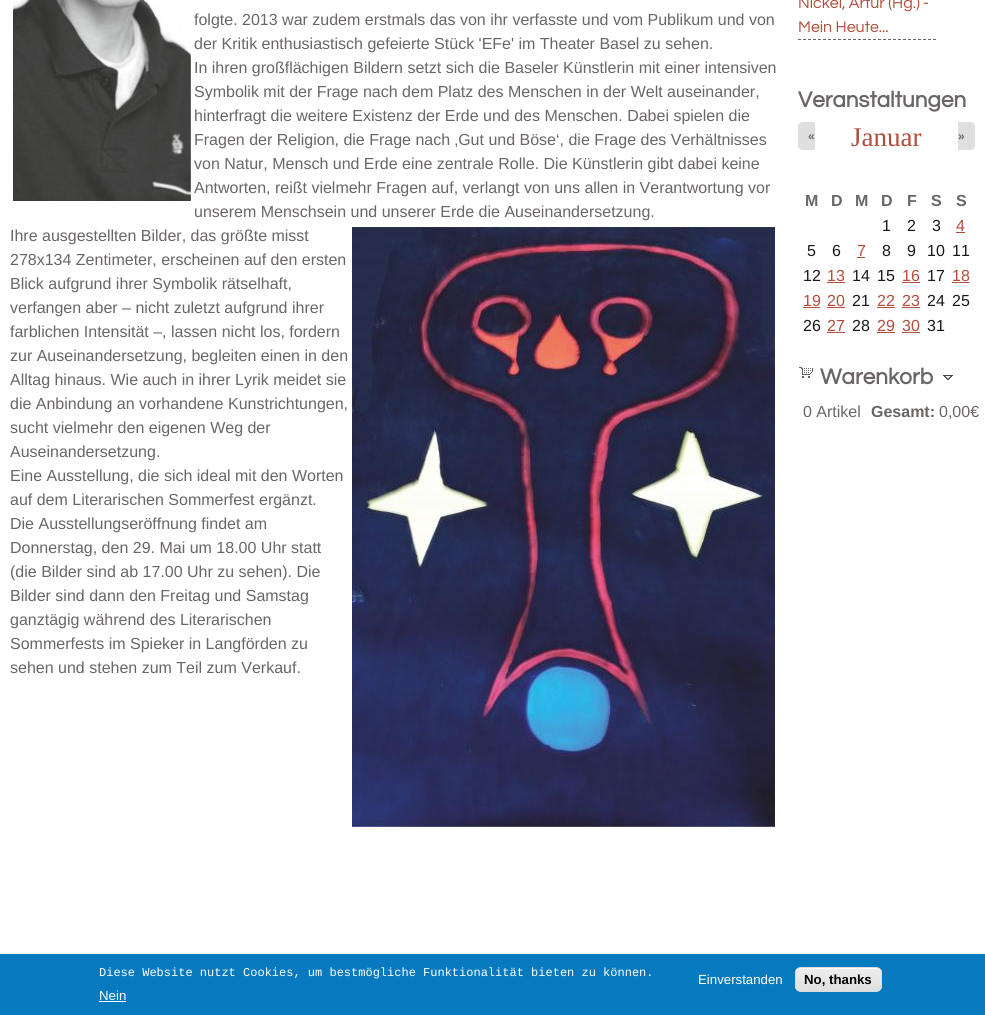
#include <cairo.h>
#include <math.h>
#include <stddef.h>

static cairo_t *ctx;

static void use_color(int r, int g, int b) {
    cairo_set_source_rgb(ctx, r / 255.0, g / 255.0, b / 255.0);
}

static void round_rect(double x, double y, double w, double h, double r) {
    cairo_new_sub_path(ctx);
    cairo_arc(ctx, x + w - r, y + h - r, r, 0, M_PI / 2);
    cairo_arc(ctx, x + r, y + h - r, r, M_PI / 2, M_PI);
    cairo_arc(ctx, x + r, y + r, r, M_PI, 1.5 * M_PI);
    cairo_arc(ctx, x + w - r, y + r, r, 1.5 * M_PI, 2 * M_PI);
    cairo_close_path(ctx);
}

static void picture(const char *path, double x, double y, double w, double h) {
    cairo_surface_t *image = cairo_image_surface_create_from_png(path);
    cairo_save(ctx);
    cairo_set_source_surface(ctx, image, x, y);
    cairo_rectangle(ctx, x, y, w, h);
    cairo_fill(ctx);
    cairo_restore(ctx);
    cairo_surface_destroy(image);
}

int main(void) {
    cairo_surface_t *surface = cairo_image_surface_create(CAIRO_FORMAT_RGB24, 985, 1015);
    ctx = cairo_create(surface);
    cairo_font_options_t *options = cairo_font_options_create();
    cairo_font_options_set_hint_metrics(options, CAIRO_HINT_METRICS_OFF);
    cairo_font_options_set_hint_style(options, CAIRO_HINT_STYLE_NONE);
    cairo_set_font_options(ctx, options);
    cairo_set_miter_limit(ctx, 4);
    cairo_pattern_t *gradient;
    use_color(255, 255, 255);
    cairo_paint(ctx);
    picture("img1.png", 13, 0, 178, 201);
    cairo_select_font_face(ctx, "Liberation Sans", CAIRO_FONT_SLANT_NORMAL, CAIRO_FONT_WEIGHT_NORMAL);
    cairo_set_font_size(ctx, 16);
    use_color(107, 101, 101);
    cairo_move_to(ctx, 194, 25);
    cairo_show_text(ctx, "folgte. 2013 war zudem erstmals das von ihr verfasste und vom Publikum und von");
    cairo_move_to(ctx, 194, 49);
    cairo_show_text(ctx, "der Kritik enthusiastisch gefeierte Stück 'EFe' im Theater Basel zu sehen.");
    cairo_move_to(ctx, 194, 73);
    cairo_show_text(ctx, "In ihren großflächigen Bildern setzt sich die Baseler Künstlerin mit einer intensiven");
    cairo_move_to(ctx, 194, 97);
    cairo_show_text(ctx, "Symbolik mit der Frage nach dem Platz des Menschen in der Welt auseinander,");
    cairo_move_to(ctx, 194, 121);
    cairo_show_text(ctx, "hinterfragt die weitere Existenz der Erde und des Menschen. Dabei spielen die");
    cairo_move_to(ctx, 194, 145);
    cairo_show_text(ctx, "Fragen der Religion, die Frage nach ‚Gut und Böse‘, die Frage des Verhältnisses");
    cairo_move_to(ctx, 194, 169);
    cairo_show_text(ctx, "von Natur, Mensch und Erde eine zentrale Rolle. Die Künstlerin gibt dabei keine");
    cairo_move_to(ctx, 194, 193);
    cairo_show_text(ctx, "Antworten, reißt vielmehr Fragen auf, verlangt von uns allen in Verantwortung vor");
    cairo_move_to(ctx, 194, 217);
    cairo_show_text(ctx, "unserem Menschsein und unserer Erde die Auseinandersetzung.");
    cairo_move_to(ctx, 10, 241);
    cairo_show_text(ctx, "Ihre ausgestellten Bilder, das größte misst");
    picture("img2.png", 352, 227, 423, 600);
    cairo_move_to(ctx, 10, 265);
    cairo_show_text(ctx, "278x134 Zentimeter, erscheinen auf den ersten");
    cairo_move_to(ctx, 10, 289);
    cairo_show_text(ctx, "Blick aufgrund ihrer Symbolik rätselhaft,");
    cairo_move_to(ctx, 10, 313);
    cairo_show_text(ctx, "verfangen aber – nicht zuletzt aufgrund ihrer");
    cairo_move_to(ctx, 10, 337);
    cairo_show_text(ctx, "farblichen Intensität –, lassen nicht los, fordern");
    cairo_move_to(ctx, 10, 361);
    cairo_show_text(ctx, "zur Auseinandersetzung, begleiten einen in den");
    cairo_move_to(ctx, 10, 385);
    cairo_show_text(ctx, "Alltag hinaus. Wie auch in ihrer Lyrik meidet sie");
    cairo_move_to(ctx, 10, 409);
    cairo_show_text(ctx, "die Anbindung an vorhandene Kunstrichtungen,");
    cairo_move_to(ctx, 10, 433);
    cairo_show_text(ctx, "sucht vielmehr den eigenen Weg der");
    cairo_move_to(ctx, 10, 457);
    cairo_show_text(ctx, "Auseinandersetzung.");
    cairo_move_to(ctx, 10, 481);
    cairo_show_text(ctx, "Eine Ausstellung, die sich ideal mit den Worten");
    cairo_move_to(ctx, 10, 505);
    cairo_show_text(ctx, "auf dem Literarischen Sommerfest ergänzt.");
    cairo_move_to(ctx, 10, 529);
    cairo_show_text(ctx, "Die Ausstellungseröffnung findet am");
    cairo_move_to(ctx, 10, 553);
    cairo_show_text(ctx, "Donnerstag, den 29. Mai um 18.00 Uhr statt");
    cairo_move_to(ctx, 10, 577);
    cairo_show_text(ctx, "(die Bilder sind ab 17.00 Uhr zu sehen). Die");
    cairo_move_to(ctx, 10, 601);
    cairo_show_text(ctx, "Bilder sind dann den Freitag und Samstag");
    cairo_move_to(ctx, 10, 625);
    cairo_show_text(ctx, "ganztägig während des Literarischen");
    cairo_move_to(ctx, 10, 649);
    cairo_show_text(ctx, "Sommerfests im Spieker in Langförden zu");
    cairo_move_to(ctx, 10, 673);
    cairo_show_text(ctx, "sehen und stehen zum Teil zum Verkauf.");
    cairo_new_path(ctx);
    cairo_move_to(ctx, 798, 39.5);
    cairo_line_to(ctx, 936, 39.5);
    cairo_set_line_width(ctx, 1);
    cairo_set_dash(ctx, (double[]){3, 2}, 2, 0);
    cairo_stroke(ctx);
    cairo_select_font_face(ctx, "Questrial", CAIRO_FONT_SLANT_NORMAL, CAIRO_FONT_WEIGHT_NORMAL);
    use_color(178, 76, 60);
    cairo_move_to(ctx, 798, 8);
    cairo_show_text(ctx, "Nickel, Artur (Hg.) -");
    cairo_move_to(ctx, 798, 32);
    cairo_show_text(ctx, "Mein Heute...");
    cairo_select_font_face(ctx, "Questrial", CAIRO_FONT_SLANT_NORMAL, CAIRO_FONT_WEIGHT_BOLD);
    cairo_set_font_size(ctx, 22.5);
    use_color(107, 101, 101);
    cairo_move_to(ctx, 798, 107);
    cairo_show_text(ctx, "Veranstaltungen");
    cairo_select_font_face(ctx, "Liberation Serif", CAIRO_FONT_SLANT_NORMAL, CAIRO_FONT_WEIGHT_NORMAL);
    cairo_set_font_size(ctx, 27);
    use_color(178, 76, 60);
    cairo_move_to(ctx, 851, 146);
    cairo_show_text(ctx, "Januar");
    use_color(223, 223, 223);
    cairo_new_path(ctx);
    cairo_move_to(ctx, 803, 122);
    cairo_line_to(ctx, 815, 122);
    cairo_line_to(ctx, 815, 150);
    cairo_line_to(ctx, 803, 150);
    cairo_curve_to(ctx, 800, 150, 798, 148, 798, 145);
    cairo_line_to(ctx, 798, 127);
    cairo_curve_to(ctx, 798, 124, 800, 122, 803, 122);
    cairo_close_path(ctx);
    cairo_fill(ctx);
    cairo_select_font_face(ctx, "Liberation Sans", CAIRO_FONT_SLANT_NORMAL, CAIRO_FONT_WEIGHT_BOLD);
    cairo_set_font_size(ctx, 12);
    use_color(107, 101, 101);
    cairo_move_to(ctx, 808, 140);
    cairo_show_text(ctx, "«");
    use_color(223, 223, 223);
    cairo_new_path(ctx);
    cairo_move_to(ctx, 958, 122);
    cairo_line_to(ctx, 970, 122);
    cairo_curve_to(ctx, 973, 122, 975, 124, 975, 127);
    cairo_line_to(ctx, 975, 145);
    cairo_curve_to(ctx, 975, 148, 973, 150, 970, 150);
    cairo_line_to(ctx, 958, 150);
    cairo_close_path(ctx);
    cairo_fill(ctx);
    use_color(107, 101, 101);
    cairo_move_to(ctx, 958, 140);
    cairo_show_text(ctx, "»");
    cairo_set_font_size(ctx, 16);
    cairo_move_to(ctx, 805, 206);
    cairo_show_text(ctx, "M");
    cairo_move_to(ctx, 831, 206);
    cairo_show_text(ctx, "D");
    cairo_move_to(ctx, 855, 206);
    cairo_show_text(ctx, "M");
    cairo_move_to(ctx, 881, 206);
    cairo_show_text(ctx, "D");
    cairo_move_to(ctx, 907, 206);
    cairo_show_text(ctx, "F");
    cairo_move_to(ctx, 931, 206);
    cairo_show_text(ctx, "S");
    cairo_move_to(ctx, 956, 206);
    cairo_show_text(ctx, "S");
    cairo_select_font_face(ctx, "Liberation Sans", CAIRO_FONT_SLANT_NORMAL, CAIRO_FONT_WEIGHT_NORMAL);
    use_color(25, 24, 24);
    cairo_move_to(ctx, 882, 231);
    cairo_show_text(ctx, "1");
    cairo_move_to(ctx, 907, 231);
    cairo_show_text(ctx, "2");
    cairo_move_to(ctx, 932, 231);
    cairo_show_text(ctx, "3");
    use_color(178, 76, 60);
    cairo_move_to(ctx, 956, 231);
    cairo_show_text(ctx, "4");
    cairo_rectangle(ctx, 956, 232, 9, 1);
    cairo_fill(ctx);
    use_color(25, 24, 24);
    cairo_move_to(ctx, 807, 256);
    cairo_show_text(ctx, "5");
    cairo_move_to(ctx, 832, 256);
    cairo_show_text(ctx, "6");
    use_color(178, 76, 60);
    cairo_move_to(ctx, 857, 256);
    cairo_show_text(ctx, "7");
    cairo_rectangle(ctx, 857, 257, 8, 1);
    cairo_fill(ctx);
    use_color(25, 24, 24);
    cairo_move_to(ctx, 882, 256);
    cairo_show_text(ctx, "8");
    cairo_move_to(ctx, 907, 256);
    cairo_show_text(ctx, "9");
    cairo_move_to(ctx, 927, 256);
    cairo_show_text(ctx, "10");
    cairo_move_to(ctx, 952, 256);
    cairo_show_text(ctx, "11");
    cairo_move_to(ctx, 803, 281);
    cairo_show_text(ctx, "12");
    use_color(178, 76, 60);
    cairo_move_to(ctx, 827, 281);
    cairo_show_text(ctx, "13");
    cairo_rectangle(ctx, 827, 282, 18, 1);
    cairo_fill(ctx);
    use_color(25, 24, 24);
    cairo_move_to(ctx, 852, 281);
    cairo_show_text(ctx, "14");
    cairo_move_to(ctx, 877, 281);
    cairo_show_text(ctx, "15");
    use_color(178, 76, 60);
    cairo_move_to(ctx, 902, 281);
    cairo_show_text(ctx, "16");
    cairo_rectangle(ctx, 902, 282, 18, 1);
    cairo_fill(ctx);
    use_color(25, 24, 24);
    cairo_move_to(ctx, 927, 281);
    cairo_show_text(ctx, "17");
    use_color(178, 76, 60);
    cairo_move_to(ctx, 952, 281);
    cairo_show_text(ctx, "18");
    cairo_rectangle(ctx, 952, 282, 17, 1);
    cairo_fill(ctx);
    cairo_move_to(ctx, 803, 306);
    cairo_show_text(ctx, "19");
    cairo_rectangle(ctx, 803, 307, 17, 1);
    cairo_fill(ctx);
    cairo_move_to(ctx, 827, 306);
    cairo_show_text(ctx, "20");
    cairo_rectangle(ctx, 827, 307, 18, 1);
    cairo_fill(ctx);
    use_color(25, 24, 24);
    cairo_move_to(ctx, 852, 306);
    cairo_show_text(ctx, "21");
    use_color(178, 76, 60);
    cairo_move_to(ctx, 877, 306);
    cairo_show_text(ctx, "22");
    cairo_rectangle(ctx, 877, 307, 18, 1);
    cairo_fill(ctx);
    cairo_move_to(ctx, 902, 306);
    cairo_show_text(ctx, "23");
    cairo_rectangle(ctx, 902, 307, 18, 1);
    cairo_fill(ctx);
    use_color(25, 24, 24);
    cairo_move_to(ctx, 927, 306);
    cairo_show_text(ctx, "24");
    cairo_move_to(ctx, 952, 306);
    cairo_show_text(ctx, "25");
    cairo_move_to(ctx, 803, 331);
    cairo_show_text(ctx, "26");
    use_color(178, 76, 60);
    cairo_move_to(ctx, 827, 331);
    cairo_show_text(ctx, "27");
    cairo_rectangle(ctx, 827, 332, 18, 1);
    cairo_fill(ctx);
    use_color(25, 24, 24);
    cairo_move_to(ctx, 852, 331);
    cairo_show_text(ctx, "28");
    use_color(178, 76, 60);
    cairo_move_to(ctx, 877, 331);
    cairo_show_text(ctx, "29");
    cairo_rectangle(ctx, 877, 332, 18, 1);
    cairo_fill(ctx);
    cairo_move_to(ctx, 902, 331);
    cairo_show_text(ctx, "30");
    cairo_rectangle(ctx, 902, 332, 18, 1);
    cairo_fill(ctx);
    use_color(25, 24, 24);
    cairo_move_to(ctx, 927, 331);
    cairo_show_text(ctx, "31");
    picture("img3.png", 799, 367, 14, 11);
    cairo_select_font_face(ctx, "Questrial", CAIRO_FONT_SLANT_NORMAL, CAIRO_FONT_WEIGHT_BOLD);
    cairo_set_font_size(ctx, 22.5);
    use_color(107, 101, 101);
    cairo_move_to(ctx, 820, 384);
    cairo_show_text(ctx, "Warenkorb");
    picture("img4.png", 943, 375, 10, 5);
    cairo_select_font_face(ctx, "Liberation Sans", CAIRO_FONT_SLANT_NORMAL, CAIRO_FONT_WEIGHT_NORMAL);
    cairo_set_font_size(ctx, 16);
    cairo_move_to(ctx, 803, 417);
    cairo_show_text(ctx, "0 Artikel");
    cairo_select_font_face(ctx, "Liberation Sans", CAIRO_FONT_SLANT_NORMAL, CAIRO_FONT_WEIGHT_BOLD);
    cairo_move_to(ctx, 871, 417);
    cairo_show_text(ctx, "Gesamt:");
    cairo_select_font_face(ctx, "Liberation Sans", CAIRO_FONT_SLANT_NORMAL, CAIRO_FONT_WEIGHT_NORMAL);
    cairo_move_to(ctx, 939, 417);
    cairo_show_text(ctx, "0,00€");
    use_color(7, 121, 191);
    cairo_rectangle(ctx, 0, 954, 985, 61);
    cairo_fill(ctx);
    cairo_select_font_face(ctx, "Liberation Mono", CAIRO_FONT_SLANT_NORMAL, CAIRO_FONT_WEIGHT_NORMAL);
    cairo_set_font_size(ctx, 12);
    use_color(255, 255, 255);
    cairo_move_to(ctx, 99, 976);
    cairo_show_text(ctx, "Diese Website nutzt Cookies, um bestmögliche Funktionalität bieten zu können.");
    cairo_select_font_face(ctx, "Liberation Sans", CAIRO_FONT_SLANT_NORMAL, CAIRO_FONT_WEIGHT_NORMAL);
    cairo_set_font_size(ctx, 13.25);
    cairo_move_to(ctx, 99, 1000);
    cairo_show_text(ctx, "Nein");
    cairo_rectangle(ctx, 99, 1001, 27, 1);
    cairo_fill(ctx);
    cairo_move_to(ctx, 698, 984);
    cairo_show_text(ctx, "Einverstanden");
    cairo_save(ctx);
    round_rect(795, 967, 87, 25, 6);
    cairo_clip(ctx);
    gradient = cairo_pattern_create_linear(839, 968, 839, 991);
    cairo_pattern_add_color_stop_rgba(gradient, 0.05, 0.929, 0.929, 0.929, 1);
    cairo_pattern_add_color_stop_rgba(gradient, 1, 0.875, 0.875, 0.875, 1);
    cairo_set_source(ctx, gradient);
    cairo_pattern_destroy(gradient);
    cairo_rectangle(ctx, 795, 968, 87, 23);
    cairo_fill(ctx);
    cairo_restore(ctx);
    cairo_new_path(ctx);
    cairo_move_to(ctx, 801, 969);
    cairo_line_to(ctx, 876, 969);
    cairo_curve_to(ctx, 879, 969, 881, 971, 881, 974);
    cairo_curve_to(ctx, 881, 965, 869, 968, 864, 968);
    cairo_line_to(ctx, 814, 968);
    cairo_curve_to(ctx, 808, 968, 796, 965, 796, 974);
    cairo_curve_to(ctx, 796, 971, 798, 969, 801, 969);
    cairo_close_path(ctx);
    cairo_fill(ctx);
    round_rect(795.5, 967.5, 86, 24, 5.5);
    use_color(220, 220, 220);
    cairo_set_dash(ctx, NULL, 0, 0);
    cairo_stroke(ctx);
    cairo_select_font_face(ctx, "Liberation Sans", CAIRO_FONT_SLANT_NORMAL, CAIRO_FONT_WEIGHT_BOLD);
    use_color(0, 0, 0);
    cairo_move_to(ctx, 804, 984);
    cairo_show_text(ctx, "No, thanks");
    cairo_surface_write_to_png(surface, "result.png");
    cairo_font_options_destroy(options);
    cairo_destroy(ctx);
    cairo_surface_destroy(surface);
    return 0;
}
